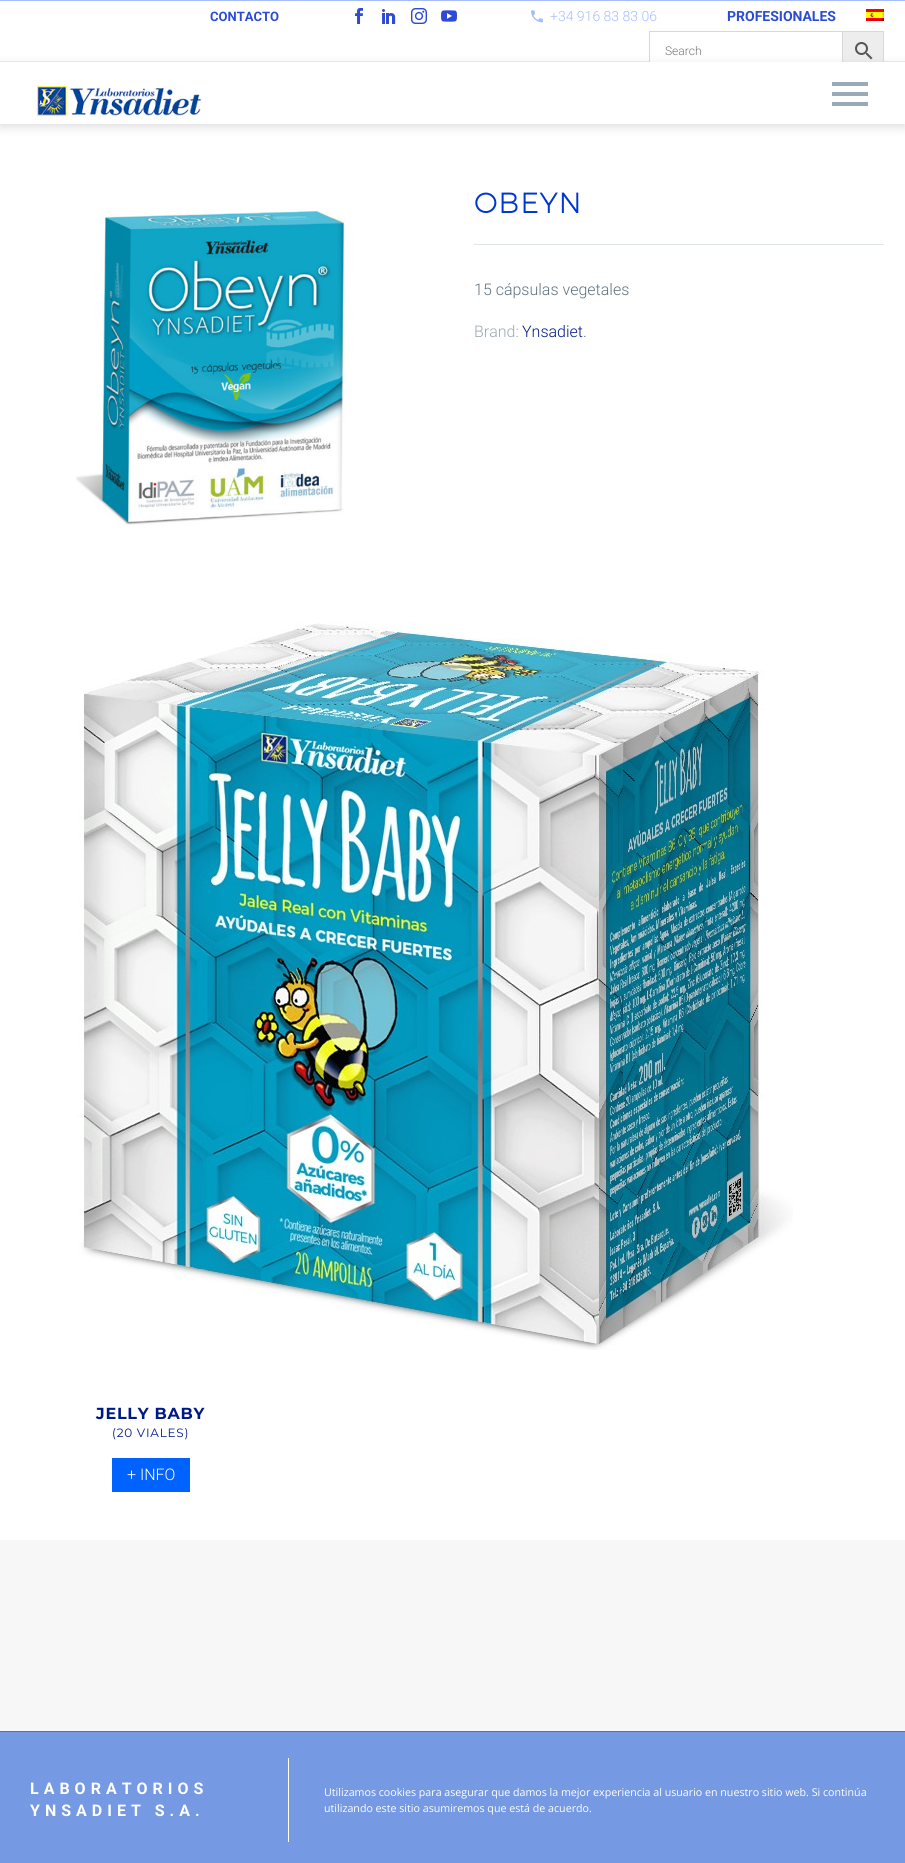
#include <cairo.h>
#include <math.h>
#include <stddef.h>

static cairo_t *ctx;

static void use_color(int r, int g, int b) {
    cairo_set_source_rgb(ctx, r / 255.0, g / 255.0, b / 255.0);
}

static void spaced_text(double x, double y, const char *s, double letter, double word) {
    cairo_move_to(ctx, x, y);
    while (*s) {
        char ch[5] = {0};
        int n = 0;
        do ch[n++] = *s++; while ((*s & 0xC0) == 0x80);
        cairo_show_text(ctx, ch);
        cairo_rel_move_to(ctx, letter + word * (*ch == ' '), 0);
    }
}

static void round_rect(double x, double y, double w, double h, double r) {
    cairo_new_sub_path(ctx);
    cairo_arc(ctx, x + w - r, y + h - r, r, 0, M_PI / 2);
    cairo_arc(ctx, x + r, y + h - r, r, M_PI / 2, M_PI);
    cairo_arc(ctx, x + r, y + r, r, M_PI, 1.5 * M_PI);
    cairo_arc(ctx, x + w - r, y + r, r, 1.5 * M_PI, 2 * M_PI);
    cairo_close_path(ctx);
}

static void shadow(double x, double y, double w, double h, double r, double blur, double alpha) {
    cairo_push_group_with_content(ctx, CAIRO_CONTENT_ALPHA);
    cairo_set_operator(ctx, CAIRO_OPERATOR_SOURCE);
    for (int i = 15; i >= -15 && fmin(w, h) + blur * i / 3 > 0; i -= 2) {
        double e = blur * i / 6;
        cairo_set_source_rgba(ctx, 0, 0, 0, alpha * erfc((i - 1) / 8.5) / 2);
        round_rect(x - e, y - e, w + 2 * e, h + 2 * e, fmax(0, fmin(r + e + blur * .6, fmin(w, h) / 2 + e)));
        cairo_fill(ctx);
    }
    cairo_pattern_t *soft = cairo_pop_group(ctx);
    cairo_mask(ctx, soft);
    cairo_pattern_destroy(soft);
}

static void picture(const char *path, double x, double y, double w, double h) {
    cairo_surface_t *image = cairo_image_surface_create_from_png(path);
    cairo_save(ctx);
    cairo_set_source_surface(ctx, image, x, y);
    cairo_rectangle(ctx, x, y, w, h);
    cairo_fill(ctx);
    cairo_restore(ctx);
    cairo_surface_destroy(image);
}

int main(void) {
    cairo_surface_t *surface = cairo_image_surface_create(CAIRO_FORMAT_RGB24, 905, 1863);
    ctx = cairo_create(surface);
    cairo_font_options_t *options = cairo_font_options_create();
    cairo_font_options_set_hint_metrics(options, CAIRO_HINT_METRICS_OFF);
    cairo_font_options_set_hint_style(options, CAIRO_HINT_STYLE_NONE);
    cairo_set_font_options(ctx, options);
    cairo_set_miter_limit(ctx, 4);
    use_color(255, 255, 255);
    cairo_paint(ctx);
    use_color(166, 188, 255);
    cairo_rectangle(ctx, 0, 0, 905, 1);
    cairo_fill(ctx);
    use_color(235, 235, 235);
    cairo_rectangle(ctx, 0, 61, 905, 1);
    cairo_fill(ctx);
    cairo_select_font_face(ctx, "Roboto", CAIRO_FONT_SLANT_NORMAL, CAIRO_FONT_WEIGHT_BOLD);
    cairo_set_font_size(ctx, 13);
    use_color(43, 75, 211);
    cairo_move_to(ctx, 210, 21);
    cairo_show_text(ctx, "CONTACTO");
    picture("img1.png", 355, 8, 8, 16);
    picture("img2.png", 382, 9, 14, 15);
    picture("img3.png", 411, 8, 16, 16);
    picture("img4.png", 441, 10, 16, 12);
    picture("img5.png", 531, 10, 12, 13);
    cairo_select_font_face(ctx, "Roboto Light", CAIRO_FONT_SLANT_NORMAL, CAIRO_FONT_WEIGHT_NORMAL);
    cairo_set_font_size(ctx, 14);
    use_color(166, 188, 255);
    cairo_move_to(ctx, 550, 21);
    cairo_show_text(ctx, "+34 916 83 83 06");
    cairo_select_font_face(ctx, "Roboto", CAIRO_FONT_SLANT_NORMAL, CAIRO_FONT_WEIGHT_BOLD);
    use_color(43, 75, 211);
    cairo_move_to(ctx, 727, 21);
    cairo_show_text(ctx, "PROFESIONALES");
    picture("img6.png", 866, 9, 18, 12);
    use_color(255, 255, 255);
    cairo_rectangle(ctx, 650, 61, 192, 1);
    cairo_fill(ctx);
    use_color(237, 237, 237);
    cairo_rectangle(ctx, 843, 32, 40, 29);
    cairo_fill(ctx);
    cairo_rectangle(ctx, 842.5, 31.5, 41, 39);
    use_color(216, 216, 216);
    cairo_set_line_width(ctx, 1);
    cairo_stroke(ctx);
    cairo_rectangle(ctx, 649.5, 31.5, 193, 39);
    cairo_stroke(ctx);
    cairo_select_font_face(ctx, "Roboto Light", CAIRO_FONT_SLANT_NORMAL, CAIRO_FONT_WEIGHT_NORMAL);
    cairo_set_font_size(ctx, 12);
    use_color(117, 117, 117);
    cairo_move_to(ctx, 665, 55);
    cairo_show_text(ctx, "Search");
    picture("img7.png", 855, 42, 18, 18);
    use_color(200, 200, 200);
    shadow(0, 65, 905, 62, 0, 5, 0.6);
    use_color(255, 255, 255);
    cairo_rectangle(ctx, 0, 62, 905, 62);
    cairo_fill(ctx);
    picture("img8.png", 37, 86, 164, 30);
    use_color(153, 169, 181);
    cairo_rectangle(ctx, 832, 82, 36, 4);
    cairo_fill(ctx);
    cairo_rectangle(ctx, 832, 92, 36, 4);
    cairo_fill(ctx);
    cairo_rectangle(ctx, 832, 102, 36, 4);
    cairo_fill(ctx);
    picture("img9.png", 76, 208, 270, 318);
    cairo_select_font_face(ctx, "Montserrat", CAIRO_FONT_SLANT_NORMAL, CAIRO_FONT_WEIGHT_BOLD);
    cairo_set_font_size(ctx, 28);
    use_color(0, 54, 208);
    spaced_text(474, 213, "OBEYN", 1.5, 0);
    use_color(223, 229, 232);
    cairo_rectangle(ctx, 474, 244, 410, 1);
    cairo_fill(ctx);
    cairo_select_font_face(ctx, "Roboto Light", CAIRO_FONT_SLANT_NORMAL, CAIRO_FONT_WEIGHT_NORMAL);
    cairo_set_font_size(ctx, 16);
    use_color(95, 114, 127);
    cairo_move_to(ctx, 474, 295);
    cairo_show_text(ctx, "15 cápsulas vegetales");
    use_color(153, 169, 181);
    cairo_move_to(ctx, 474, 337);
    cairo_show_text(ctx, "Brand:");
    use_color(0, 26, 132);
    cairo_move_to(ctx, 522, 337);
    cairo_show_text(ctx, "Ynsadiet");
    use_color(95, 114, 127);
    cairo_move_to(ctx, 583, 337);
    cairo_show_text(ctx, ".");
    picture("img10.png", 77, 622, 716, 728);
    cairo_select_font_face(ctx, "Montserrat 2", CAIRO_FONT_SLANT_NORMAL, CAIRO_FONT_WEIGHT_BOLD);
    use_color(0, 26, 132);
    spaced_text(96, 1419, "JELLY BABY", 0.75, 0);
    cairo_select_font_face(ctx, "Montserrat", CAIRO_FONT_SLANT_NORMAL, CAIRO_FONT_WEIGHT_NORMAL);
    cairo_set_font_size(ctx, 12);
    spaced_text(112, 1437, "(20 VIALES)", 0.75, 0);
    use_color(0, 98, 255);
    cairo_rectangle(ctx, 112, 1458, 78, 34);
    cairo_fill(ctx);
    cairo_select_font_face(ctx, "Roboto Light", CAIRO_FONT_SLANT_NORMAL, CAIRO_FONT_WEIGHT_NORMAL);
    cairo_set_font_size(ctx, 16);
    use_color(255, 255, 255);
    cairo_move_to(ctx, 127, 1480);
    cairo_show_text(ctx, "+ INFO");
    use_color(247, 247, 247);
    cairo_rectangle(ctx, 0, 1540, 905, 191);
    cairo_fill(ctx);
    use_color(117, 153, 226);
    cairo_rectangle(ctx, 0, 1732, 905, 131);
    cairo_fill(ctx);
    use_color(64, 116, 221);
    cairo_rectangle(ctx, 0, 1731, 905, 1);
    cairo_fill(ctx);
    use_color(255, 255, 255);
    cairo_rectangle(ctx, 288, 1758, 1, 84);
    cairo_fill(ctx);
    cairo_select_font_face(ctx, "Roboto", CAIRO_FONT_SLANT_NORMAL, CAIRO_FONT_WEIGHT_BOLD);
    spaced_text(30, 1794, "LABORATORIOS", 5, 0);
    spaced_text(30, 1816, "YNSADIET S.A.", 5, 0);
    cairo_select_font_face(ctx, "Open Sans", CAIRO_FONT_SLANT_NORMAL, CAIRO_FONT_WEIGHT_NORMAL);
    cairo_set_font_size(ctx, 10.67);
    cairo_move_to(ctx, 324, 1796);
    cairo_show_text(ctx, "Utilizamos cookies para asegurar que damos la mejor experiencia al usuario en nuestro sitio web. Si continúa");
    cairo_move_to(ctx, 324, 1812);
    cairo_show_text(ctx, "utilizando este sitio asumiremos que está de acuerdo.");
    cairo_surface_write_to_png(surface, "result.png");
    cairo_font_options_destroy(options);
    cairo_destroy(ctx);
    cairo_surface_destroy(surface);
    return 0;
}
